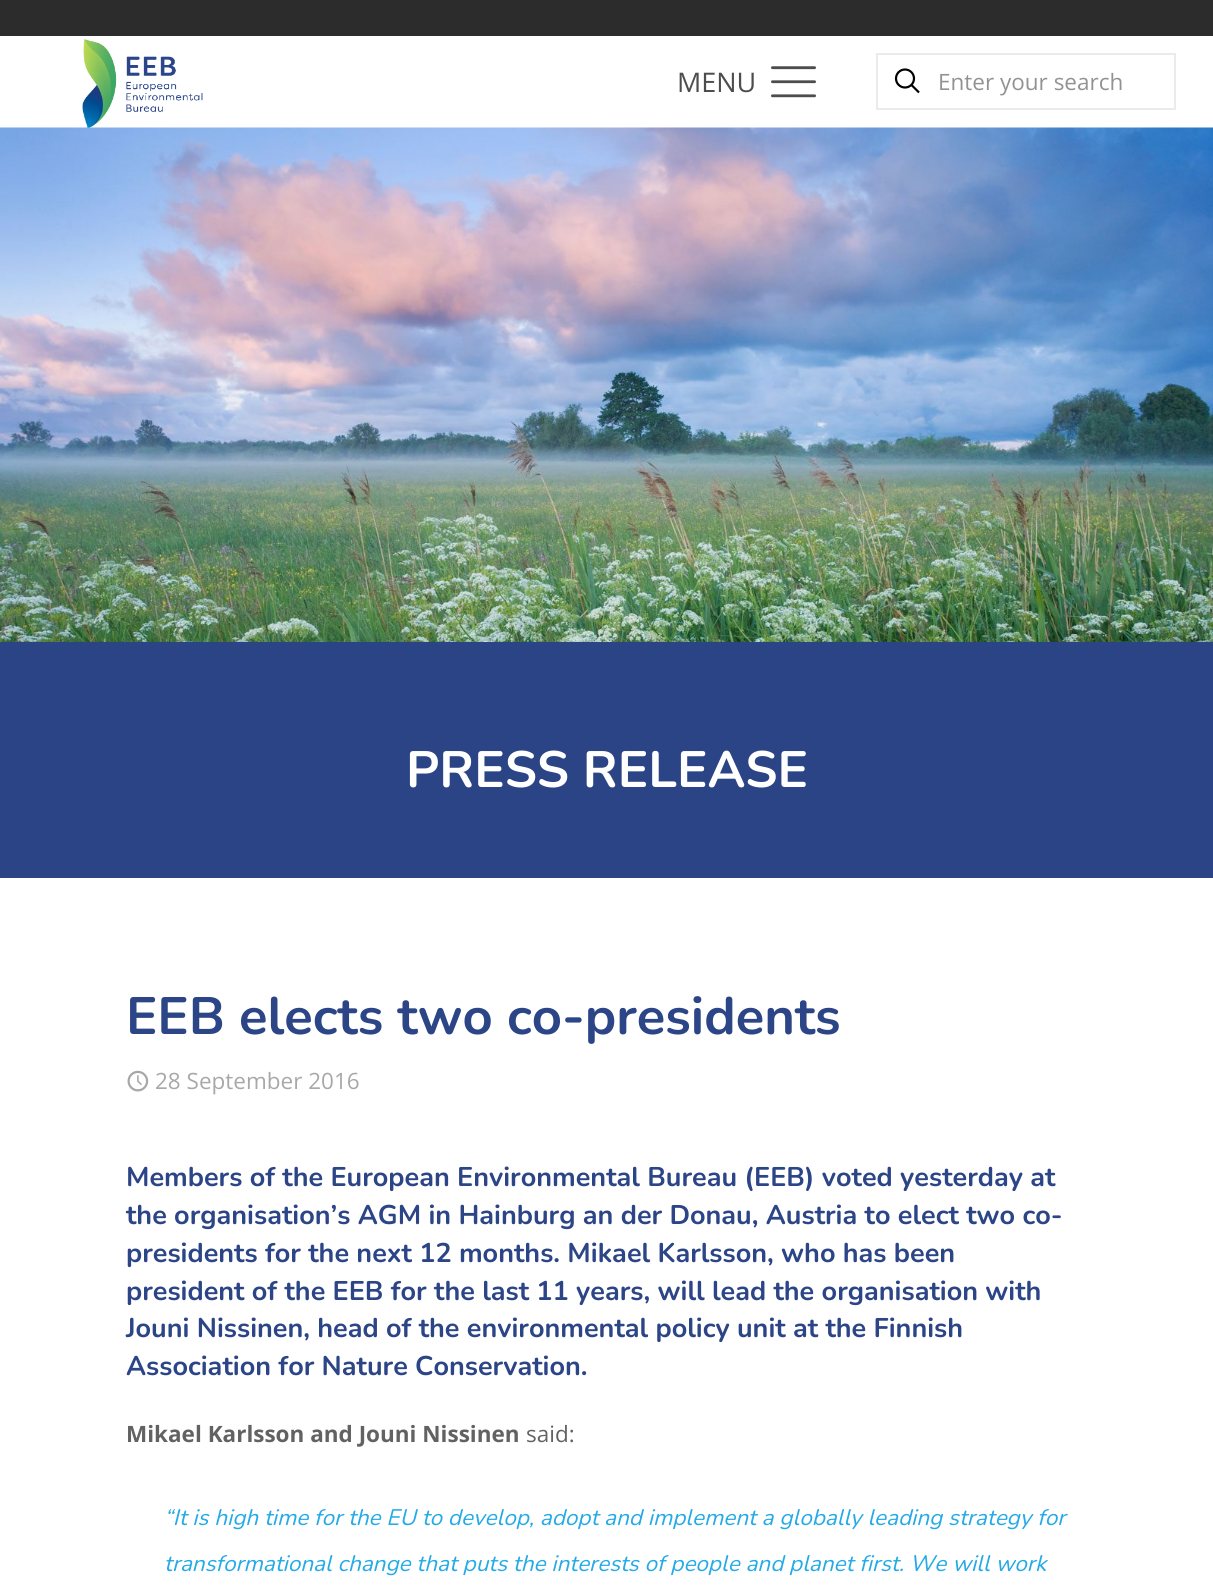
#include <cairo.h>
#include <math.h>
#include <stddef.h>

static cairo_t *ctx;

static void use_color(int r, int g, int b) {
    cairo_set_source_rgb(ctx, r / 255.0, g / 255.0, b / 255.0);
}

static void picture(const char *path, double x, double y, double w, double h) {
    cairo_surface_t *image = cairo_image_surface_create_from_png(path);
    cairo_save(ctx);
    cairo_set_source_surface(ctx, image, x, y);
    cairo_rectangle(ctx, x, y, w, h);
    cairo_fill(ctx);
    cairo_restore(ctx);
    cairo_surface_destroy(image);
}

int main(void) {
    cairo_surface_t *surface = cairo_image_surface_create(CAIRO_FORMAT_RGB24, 1213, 1594);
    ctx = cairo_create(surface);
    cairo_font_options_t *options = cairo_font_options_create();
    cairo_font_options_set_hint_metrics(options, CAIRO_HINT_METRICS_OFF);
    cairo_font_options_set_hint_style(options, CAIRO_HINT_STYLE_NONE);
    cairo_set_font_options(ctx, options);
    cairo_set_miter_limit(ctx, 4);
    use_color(255, 255, 255);
    cairo_paint(ctx);
    use_color(44, 44, 44);
    cairo_rectangle(ctx, 0, 0, 1213, 36);
    cairo_fill(ctx);
    picture("img1.png", 82, 39, 121, 89);
    cairo_select_font_face(ctx, "Open Sans", CAIRO_FONT_SLANT_NORMAL, CAIRO_FONT_WEIGHT_NORMAL);
    cairo_set_font_size(ctx, 27);
    use_color(77, 77, 77);
    cairo_move_to(ctx, 677, 92);
    cairo_show_text(ctx, "MENU");
    picture("img2.png", 771, 66, 45, 32);
    cairo_rectangle(ctx, 877, 54, 298, 55);
    use_color(235, 235, 235);
    cairo_stroke(ctx);
    cairo_arc(ctx, 905, 78.5, 9, 0, 2 * M_PI);
    use_color(0, 0, 0);
    cairo_set_line_width(ctx, 2.2);
    cairo_stroke(ctx);
    cairo_new_path(ctx);
    cairo_move_to(ctx, 911.5, 85);
    cairo_line_to(ctx, 919, 92.5);
    cairo_stroke(ctx);
    cairo_set_font_size(ctx, 22.5);
    use_color(146, 146, 146);
    cairo_move_to(ctx, 938, 90);
    cairo_show_text(ctx, "Enter your search");
    picture("img3.png", 0, 127, 1213, 515);
    use_color(43, 68, 133);
    cairo_rectangle(ctx, 0, 642, 1213, 236);
    cairo_fill(ctx);
    cairo_select_font_face(ctx, "Nunito", CAIRO_FONT_SLANT_NORMAL, CAIRO_FONT_WEIGHT_BOLD);
    cairo_set_font_size(ctx, 51);
    use_color(255, 255, 255);
    cairo_move_to(ctx, 406, 787);
    cairo_show_text(ctx, "PRESS RELEASE");
    cairo_set_font_size(ctx, 52.5);
    use_color(44, 69, 135);
    cairo_move_to(ctx, 126, 1034);
    cairo_show_text(ctx, "EEB elects two co-presidents");
    picture("img4.png", 127, 1070, 22, 22);
    cairo_select_font_face(ctx, "Open Sans", CAIRO_FONT_SLANT_NORMAL, CAIRO_FONT_WEIGHT_NORMAL);
    cairo_set_font_size(ctx, 22.5);
    use_color(168, 168, 168);
    cairo_move_to(ctx, 155, 1089);
    cairo_show_text(ctx, "28 September 2016");
    cairo_select_font_face(ctx, "Nunito", CAIRO_FONT_SLANT_NORMAL, CAIRO_FONT_WEIGHT_BOLD);
    cairo_set_font_size(ctx, 27);
    use_color(44, 69, 135);
    cairo_move_to(ctx, 126, 1186);
    cairo_show_text(ctx, "Members of the European Environmental Bureau (EEB) voted yesterday at");
    cairo_move_to(ctx, 126, 1224);
    cairo_show_text(ctx, "the organisation’s AGM in Hainburg an der Donau, Austria to elect two co-");
    cairo_move_to(ctx, 126, 1262);
    cairo_show_text(ctx, "presidents for the next 12 months. Mikael Karlsson, who has been");
    cairo_move_to(ctx, 126, 1300);
    cairo_show_text(ctx, "president of the EEB for the last 11 years, will lead the organisation with");
    cairo_move_to(ctx, 126, 1337);
    cairo_show_text(ctx, "Jouni Nissinen, head of the environmental policy unit at the Finnish");
    cairo_move_to(ctx, 126, 1375);
    cairo_show_text(ctx, "Association for Nature Conservation.");
    cairo_select_font_face(ctx, "Open Sans", CAIRO_FONT_SLANT_NORMAL, CAIRO_FONT_WEIGHT_BOLD);
    cairo_set_font_size(ctx, 22.5);
    use_color(98, 98, 98);
    cairo_move_to(ctx, 126, 1442);
    cairo_show_text(ctx, "Mikael Karlsson and Jouni Nissinen");
    cairo_select_font_face(ctx, "Open Sans", CAIRO_FONT_SLANT_NORMAL, CAIRO_FONT_WEIGHT_NORMAL);
    cairo_move_to(ctx, 526, 1442);
    cairo_show_text(ctx, "said:");
    cairo_select_font_face(ctx, "Nunito", CAIRO_FONT_SLANT_ITALIC, CAIRO_FONT_WEIGHT_NORMAL);
    use_color(36, 170, 230);
    cairo_move_to(ctx, 164, 1525);
    cairo_show_text(ctx, "“It is high time for the EU to develop, adopt and implement a globally leading strategy for");
    cairo_move_to(ctx, 164, 1571);
    cairo_show_text(ctx, "transformational change that puts the interests of people and planet first. We will work");
    cairo_surface_write_to_png(surface, "result.png");
    cairo_font_options_destroy(options);
    cairo_destroy(ctx);
    cairo_surface_destroy(surface);
    return 0;
}
